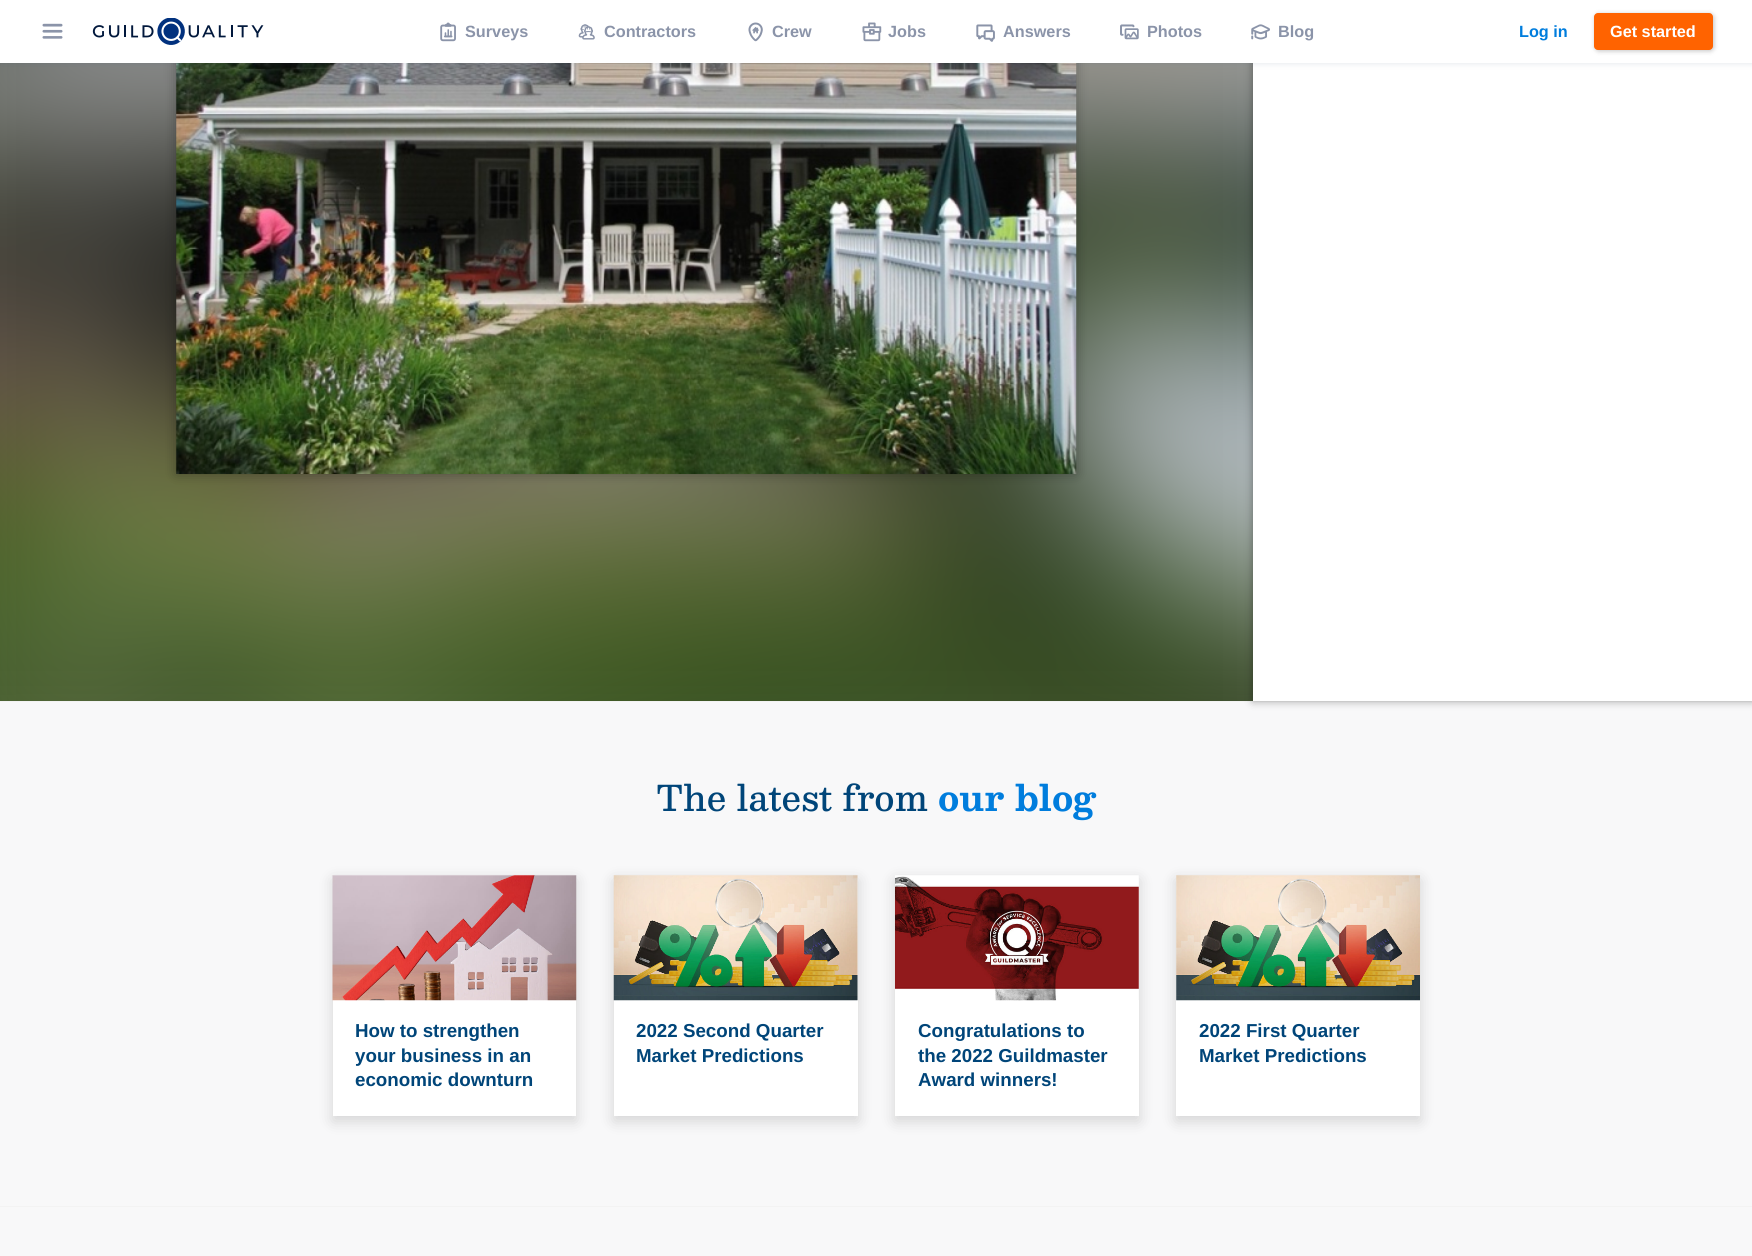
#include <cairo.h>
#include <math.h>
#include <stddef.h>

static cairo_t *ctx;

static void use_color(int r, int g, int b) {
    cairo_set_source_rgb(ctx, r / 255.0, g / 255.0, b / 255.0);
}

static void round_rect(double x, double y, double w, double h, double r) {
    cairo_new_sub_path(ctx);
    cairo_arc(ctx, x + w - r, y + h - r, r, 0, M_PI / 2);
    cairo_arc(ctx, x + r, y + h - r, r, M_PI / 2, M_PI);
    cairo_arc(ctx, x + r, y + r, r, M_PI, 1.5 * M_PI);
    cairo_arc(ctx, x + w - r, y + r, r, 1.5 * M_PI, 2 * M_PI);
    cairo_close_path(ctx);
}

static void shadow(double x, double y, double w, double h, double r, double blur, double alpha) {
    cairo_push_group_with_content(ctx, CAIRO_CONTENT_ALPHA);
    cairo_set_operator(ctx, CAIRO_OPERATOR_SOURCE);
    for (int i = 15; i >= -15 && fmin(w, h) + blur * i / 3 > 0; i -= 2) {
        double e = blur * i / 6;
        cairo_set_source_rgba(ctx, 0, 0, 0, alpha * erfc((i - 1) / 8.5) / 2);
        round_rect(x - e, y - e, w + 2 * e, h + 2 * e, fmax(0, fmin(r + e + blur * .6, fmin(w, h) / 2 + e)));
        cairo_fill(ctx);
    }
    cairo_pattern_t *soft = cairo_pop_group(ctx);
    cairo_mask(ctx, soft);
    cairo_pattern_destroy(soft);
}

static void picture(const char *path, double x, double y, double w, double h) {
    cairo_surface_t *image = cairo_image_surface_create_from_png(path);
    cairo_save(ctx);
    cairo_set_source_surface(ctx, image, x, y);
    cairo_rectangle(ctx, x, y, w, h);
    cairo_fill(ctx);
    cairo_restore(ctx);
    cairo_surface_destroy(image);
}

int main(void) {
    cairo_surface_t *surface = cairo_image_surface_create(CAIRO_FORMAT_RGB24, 1752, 1256);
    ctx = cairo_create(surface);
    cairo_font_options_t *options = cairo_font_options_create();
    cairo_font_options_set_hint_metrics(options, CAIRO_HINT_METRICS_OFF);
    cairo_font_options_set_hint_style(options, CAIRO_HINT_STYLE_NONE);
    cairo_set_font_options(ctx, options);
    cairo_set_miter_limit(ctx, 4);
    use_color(248, 248, 249);
    cairo_paint(ctx);
    picture("img11.png", 0, 63, 1253, 638);
    use_color(1, 2, 2);
    shadow(176, -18, 900, 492, 0, 6, 0.3);
    picture("img10.png", 176, 63, 901, 411);
    use_color(243, 243, 243);
    cairo_rectangle(ctx, 0, 701, 1752, 1);
    cairo_fill(ctx);
    use_color(1, 2, 2);
    shadow(1253, -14, 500, 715, 0, 4.5, 0.36);
    use_color(255, 255, 255);
    cairo_rectangle(ctx, 1253, 63, 499, 638);
    cairo_fill(ctx);
    use_color(51, 74, 109);
    shadow(0, 1, 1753, 63, 0, 3, 0.12);
    use_color(255, 255, 255);
    cairo_rectangle(ctx, 0, 0, 1752, 63);
    cairo_fill(ctx);
    picture("img1.png", 42, 23, 21, 16);
    picture("img2.png", 92, 18, 172, 27);
    picture("img3.png", 440, 22, 16, 20);
    cairo_select_font_face(ctx, "Liberation Sans", CAIRO_FONT_SLANT_NORMAL, CAIRO_FONT_WEIGHT_BOLD);
    cairo_set_font_size(ctx, 16.25);
    use_color(139, 148, 169);
    cairo_move_to(ctx, 465, 37);
    cairo_show_text(ctx, "Surveys");
    picture("img4.png", 578, 24, 17, 16);
    cairo_move_to(ctx, 604, 37);
    cairo_show_text(ctx, "Contractors");
    picture("img5.png", 748, 22, 15, 20);
    cairo_move_to(ctx, 772, 37);
    cairo_show_text(ctx, "Crew");
    picture("img6.png", 862, 22, 20, 20);
    cairo_move_to(ctx, 888, 37);
    cairo_show_text(ctx, "Jobs");
    picture("img7.png", 976, 24, 19, 18);
    cairo_move_to(ctx, 1003, 37);
    cairo_show_text(ctx, "Answers");
    picture("img8.png", 1120, 24, 19, 16);
    cairo_move_to(ctx, 1147, 37);
    cairo_show_text(ctx, "Photos");
    picture("img9.png", 1251, 24, 19, 16);
    cairo_move_to(ctx, 1278, 37);
    cairo_show_text(ctx, "Blog");
    use_color(0, 125, 221);
    cairo_move_to(ctx, 1519, 37);
    cairo_show_text(ctx, "Log in");
    use_color(0, 0, 0);
    shadow(1595, 14, 119, 37, 4, 2.5, 0.24);
    use_color(255, 99, 0);
    round_rect(1594, 13, 119, 37, 4);
    cairo_fill(ctx);
    use_color(255, 255, 255);
    cairo_move_to(ctx, 1610, 37);
    cairo_show_text(ctx, "Get started");
    cairo_select_font_face(ctx, "Besley Medium", CAIRO_FONT_SLANT_NORMAL, CAIRO_FONT_WEIGHT_NORMAL);
    cairo_set_font_size(ctx, 35);
    use_color(0, 69, 121);
    cairo_move_to(ctx, 656, 811);
    cairo_show_text(ctx, "The latest from");
    cairo_select_font_face(ctx, "Besley", CAIRO_FONT_SLANT_NORMAL, CAIRO_FONT_WEIGHT_BOLD);
    use_color(0, 125, 221);
    cairo_move_to(ctx, 938, 811);
    cairo_show_text(ctx, "our blog");
    use_color(255, 255, 255);
    cairo_rectangle(ctx, 333, 875, 243, 241);
    cairo_fill(ctx);
    cairo_save(ctx);
    cairo_set_fill_rule(ctx, CAIRO_FILL_RULE_EVEN_ODD);
    cairo_new_path(ctx);
    cairo_move_to(ctx, 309, 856);
    cairo_line_to(ctx, 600, 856);
    cairo_line_to(ctx, 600, 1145);
    cairo_line_to(ctx, 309, 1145);
    cairo_close_path(ctx);
    cairo_move_to(ctx, 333, 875);
    cairo_line_to(ctx, 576, 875);
    cairo_line_to(ctx, 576, 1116);
    cairo_line_to(ctx, 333, 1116);
    cairo_close_path(ctx);
    cairo_clip(ctx);
    use_color(0, 0, 0);
    shadow(333, 880, 243, 241, 0, 7.5, 0.15);
    cairo_restore(ctx);
    picture("img12.png", 332, 875, 245, 126);
    cairo_select_font_face(ctx, "Liberation Sans", CAIRO_FONT_SLANT_NORMAL, CAIRO_FONT_WEIGHT_BOLD);
    cairo_set_font_size(ctx, 18.75);
    use_color(0, 69, 121);
    cairo_move_to(ctx, 355, 1037);
    cairo_show_text(ctx, "How to strengthen");
    cairo_move_to(ctx, 355, 1062);
    cairo_show_text(ctx, "your business in an");
    cairo_move_to(ctx, 355, 1086);
    cairo_show_text(ctx, "economic downturn");
    use_color(255, 255, 255);
    cairo_rectangle(ctx, 614, 1000, 244, 116);
    cairo_fill(ctx);
    cairo_save(ctx);
    cairo_set_fill_rule(ctx, CAIRO_FILL_RULE_EVEN_ODD);
    cairo_new_path(ctx);
    cairo_move_to(ctx, 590, 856);
    cairo_line_to(ctx, 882, 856);
    cairo_line_to(ctx, 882, 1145);
    cairo_line_to(ctx, 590, 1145);
    cairo_close_path(ctx);
    cairo_move_to(ctx, 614, 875);
    cairo_line_to(ctx, 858, 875);
    cairo_line_to(ctx, 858, 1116);
    cairo_line_to(ctx, 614, 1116);
    cairo_close_path(ctx);
    cairo_clip(ctx);
    use_color(0, 0, 0);
    shadow(614, 880, 244, 241, 0, 7.5, 0.15);
    cairo_restore(ctx);
    use_color(238, 238, 238);
    cairo_rectangle(ctx, 614, 875, 244, 125);
    cairo_fill(ctx);
    picture("img13.png", 613, 875, 245, 126);
    use_color(0, 69, 121);
    cairo_move_to(ctx, 636, 1037);
    cairo_show_text(ctx, "2022 Second Quarter");
    cairo_move_to(ctx, 636, 1062);
    cairo_show_text(ctx, "Market Predictions");
    use_color(255, 255, 255);
    cairo_rectangle(ctx, 895, 1000, 244, 116);
    cairo_fill(ctx);
    cairo_save(ctx);
    cairo_set_fill_rule(ctx, CAIRO_FILL_RULE_EVEN_ODD);
    cairo_new_path(ctx);
    cairo_move_to(ctx, 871, 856);
    cairo_line_to(ctx, 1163, 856);
    cairo_line_to(ctx, 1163, 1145);
    cairo_line_to(ctx, 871, 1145);
    cairo_close_path(ctx);
    cairo_move_to(ctx, 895, 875);
    cairo_line_to(ctx, 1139, 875);
    cairo_line_to(ctx, 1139, 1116);
    cairo_line_to(ctx, 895, 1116);
    cairo_close_path(ctx);
    cairo_clip(ctx);
    use_color(0, 0, 0);
    shadow(895, 880, 244, 241, 0, 7.5, 0.15);
    cairo_restore(ctx);
    use_color(238, 238, 238);
    cairo_rectangle(ctx, 895, 875, 244, 125);
    cairo_fill(ctx);
    picture("img14.png", 895, 875, 244, 126);
    use_color(0, 69, 121);
    cairo_move_to(ctx, 918, 1037);
    cairo_show_text(ctx, "Congratulations to");
    cairo_move_to(ctx, 918, 1062);
    cairo_show_text(ctx, "the 2022 Guildmaster");
    cairo_move_to(ctx, 918, 1086);
    cairo_show_text(ctx, "Award winners!");
    use_color(255, 255, 255);
    cairo_rectangle(ctx, 1176, 1000, 244, 116);
    cairo_fill(ctx);
    cairo_save(ctx);
    cairo_set_fill_rule(ctx, CAIRO_FILL_RULE_EVEN_ODD);
    cairo_new_path(ctx);
    cairo_move_to(ctx, 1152, 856);
    cairo_line_to(ctx, 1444, 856);
    cairo_line_to(ctx, 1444, 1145);
    cairo_line_to(ctx, 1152, 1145);
    cairo_close_path(ctx);
    cairo_move_to(ctx, 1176, 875);
    cairo_line_to(ctx, 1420, 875);
    cairo_line_to(ctx, 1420, 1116);
    cairo_line_to(ctx, 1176, 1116);
    cairo_close_path(ctx);
    cairo_clip(ctx);
    use_color(0, 0, 0);
    shadow(1176, 880, 244, 241, 0, 7.5, 0.15);
    cairo_restore(ctx);
    use_color(238, 238, 238);
    cairo_rectangle(ctx, 1176, 875, 244, 125);
    cairo_fill(ctx);
    picture("img15.png", 1176, 875, 244, 126);
    use_color(0, 69, 121);
    cairo_move_to(ctx, 1199, 1037);
    cairo_show_text(ctx, "2022 First Quarter");
    cairo_move_to(ctx, 1199, 1062);
    cairo_show_text(ctx, "Market Predictions");
    use_color(243, 243, 243);
    cairo_rectangle(ctx, 0, 1206, 1752, 1);
    cairo_fill(ctx);
    cairo_surface_write_to_png(surface, "result.png");
    cairo_font_options_destroy(options);
    cairo_destroy(ctx);
    cairo_surface_destroy(surface);
    return 0;
}
